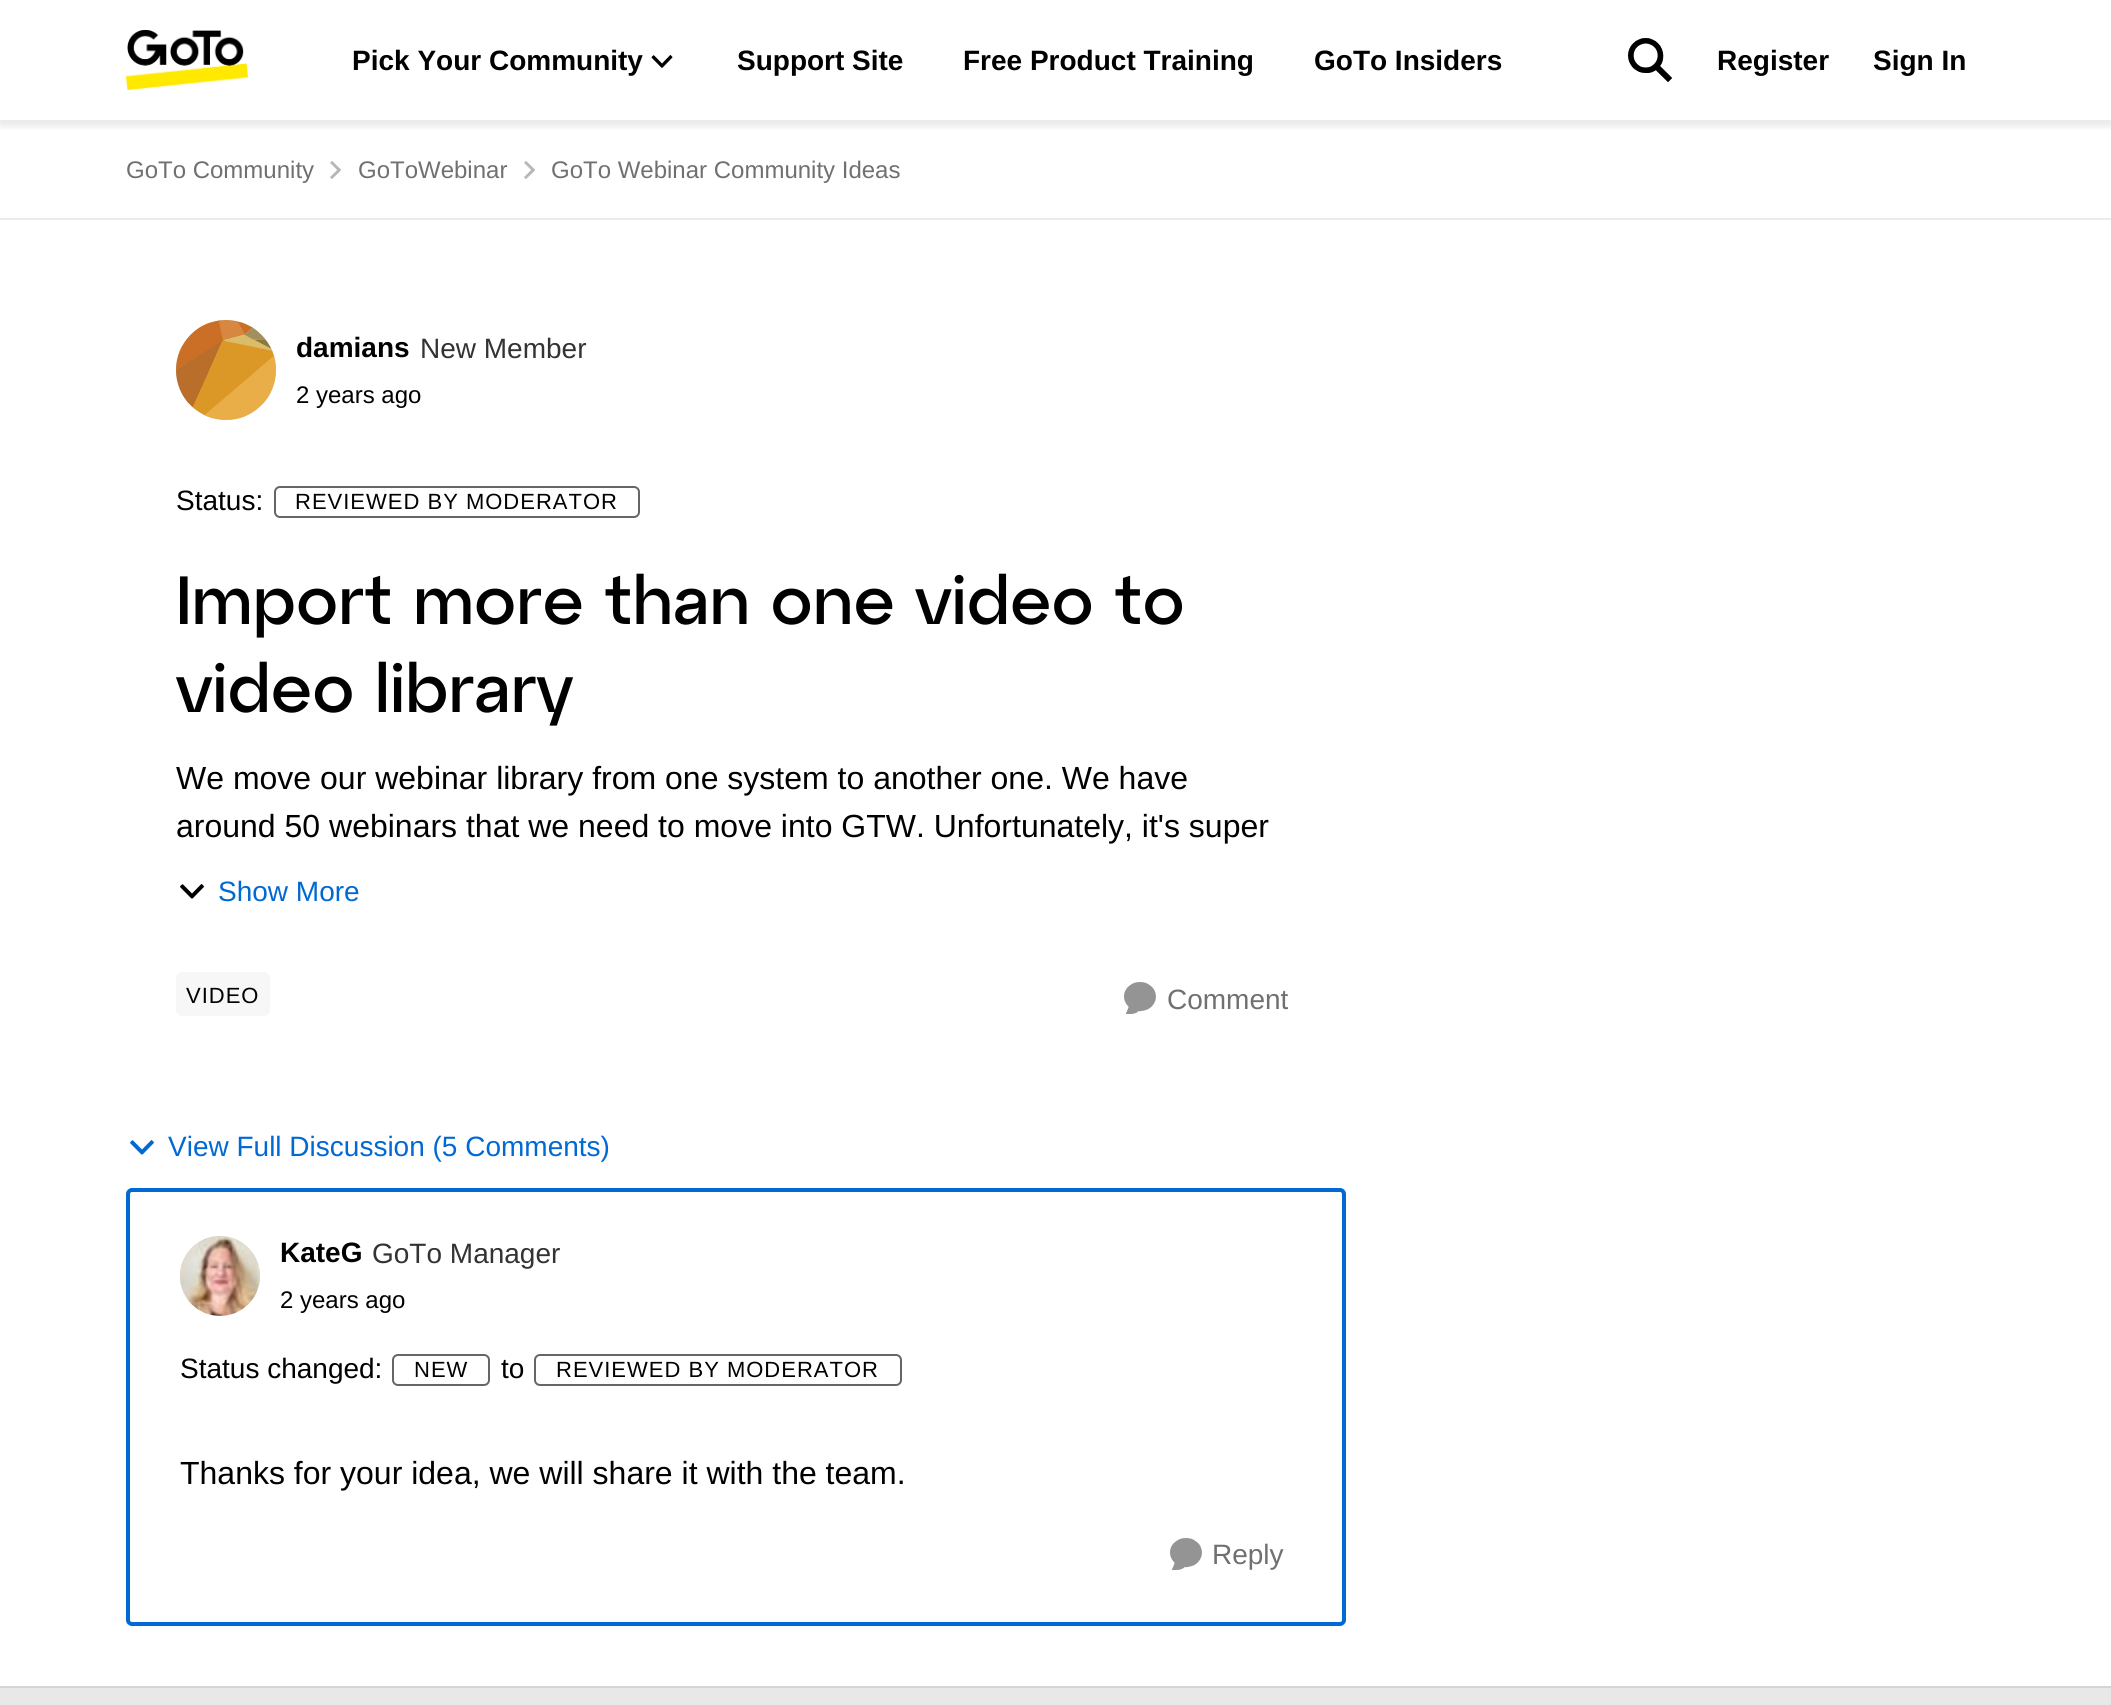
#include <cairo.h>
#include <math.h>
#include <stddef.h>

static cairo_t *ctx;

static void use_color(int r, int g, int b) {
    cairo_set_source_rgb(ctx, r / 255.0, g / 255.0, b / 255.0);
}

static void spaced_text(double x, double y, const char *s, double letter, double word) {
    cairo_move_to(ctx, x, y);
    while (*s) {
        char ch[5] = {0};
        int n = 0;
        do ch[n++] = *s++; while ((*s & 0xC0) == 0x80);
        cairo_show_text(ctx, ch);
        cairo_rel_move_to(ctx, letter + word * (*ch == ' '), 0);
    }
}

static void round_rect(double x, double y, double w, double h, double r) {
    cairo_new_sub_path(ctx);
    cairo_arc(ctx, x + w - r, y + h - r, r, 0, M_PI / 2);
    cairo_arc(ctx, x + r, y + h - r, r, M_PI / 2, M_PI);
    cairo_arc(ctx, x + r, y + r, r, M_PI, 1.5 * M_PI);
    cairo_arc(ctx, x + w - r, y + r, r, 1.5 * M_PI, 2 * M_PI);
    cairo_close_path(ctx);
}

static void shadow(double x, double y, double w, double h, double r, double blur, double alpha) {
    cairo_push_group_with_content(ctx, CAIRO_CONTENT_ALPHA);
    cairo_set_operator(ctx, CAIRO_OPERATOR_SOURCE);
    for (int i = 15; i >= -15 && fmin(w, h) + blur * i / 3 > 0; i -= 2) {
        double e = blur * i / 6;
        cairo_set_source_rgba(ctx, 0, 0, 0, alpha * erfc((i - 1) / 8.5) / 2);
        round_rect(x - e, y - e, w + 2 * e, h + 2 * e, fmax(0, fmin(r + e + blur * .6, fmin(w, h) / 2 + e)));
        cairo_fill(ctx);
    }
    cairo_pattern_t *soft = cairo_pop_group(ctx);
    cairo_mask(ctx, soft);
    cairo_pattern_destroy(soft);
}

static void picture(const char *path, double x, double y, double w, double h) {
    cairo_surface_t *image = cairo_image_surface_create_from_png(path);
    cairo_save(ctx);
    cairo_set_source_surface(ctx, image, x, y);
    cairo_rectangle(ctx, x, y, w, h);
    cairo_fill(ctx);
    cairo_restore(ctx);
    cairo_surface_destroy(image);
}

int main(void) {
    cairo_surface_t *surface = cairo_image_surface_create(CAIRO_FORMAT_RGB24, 2111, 1705);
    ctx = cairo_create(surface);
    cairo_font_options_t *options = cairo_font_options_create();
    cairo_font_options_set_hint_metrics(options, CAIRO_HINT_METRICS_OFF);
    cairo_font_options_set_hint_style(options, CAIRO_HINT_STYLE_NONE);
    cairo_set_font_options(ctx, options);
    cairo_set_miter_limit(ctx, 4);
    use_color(255, 255, 255);
    cairo_paint(ctx);
    cairo_save(ctx);
    cairo_rectangle(ctx, 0, 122, 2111, 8);
    cairo_clip(ctx);
    use_color(51, 51, 51);
    shadow(0, 4, 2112, 122, 0, 4, 0.12);
    cairo_restore(ctx);
    use_color(235, 235, 235);
    cairo_rectangle(ctx, 0, 120, 2111, 2);
    cairo_fill(ctx);
    picture("img1.png", 126, 30, 122, 60);
    cairo_select_font_face(ctx, "Liberation Sans", CAIRO_FONT_SLANT_NORMAL, CAIRO_FONT_WEIGHT_BOLD);
    cairo_set_font_size(ctx, 28);
    use_color(0, 0, 0);
    cairo_move_to(ctx, 352, 70);
    cairo_show_text(ctx, "Pick Your Community");
    picture("img2.png", 651, 55, 22, 13);
    cairo_move_to(ctx, 737, 70);
    cairo_show_text(ctx, "Support Site");
    cairo_move_to(ctx, 963, 70);
    cairo_show_text(ctx, "Free Product Training");
    cairo_move_to(ctx, 1314, 70);
    cairo_show_text(ctx, "GoTo Insiders");
    picture("img3.png", 1628, 38, 44, 45);
    cairo_move_to(ctx, 1717, 70);
    cairo_show_text(ctx, "Register");
    cairo_move_to(ctx, 1873, 70);
    cairo_show_text(ctx, "Sign In");
    use_color(235, 235, 235);
    cairo_rectangle(ctx, 0, 218, 2111, 2);
    cairo_fill(ctx);
    cairo_select_font_face(ctx, "Liberation Sans", CAIRO_FONT_SLANT_NORMAL, CAIRO_FONT_WEIGHT_NORMAL);
    cairo_set_font_size(ctx, 24);
    use_color(112, 112, 112);
    cairo_move_to(ctx, 126, 178);
    cairo_show_text(ctx, "GoTo Community");
    picture("img4.png", 330, 161, 11, 18);
    cairo_move_to(ctx, 358, 178);
    cairo_show_text(ctx, "GoToWebinar");
    picture("img4.png", 524, 161, 11, 18);
    cairo_move_to(ctx, 551, 178);
    cairo_show_text(ctx, "GoTo Webinar Community Ideas");
    use_color(217, 217, 217);
    cairo_new_path(ctx);
    cairo_arc(ctx, 226, 370, 50, 0, 2 * M_PI);
    cairo_fill(ctx);
    picture("img5.png", 176, 320, 100, 100);
    cairo_select_font_face(ctx, "Liberation Sans", CAIRO_FONT_SLANT_NORMAL, CAIRO_FONT_WEIGHT_BOLD);
    cairo_set_font_size(ctx, 28);
    use_color(0, 0, 0);
    cairo_move_to(ctx, 296, 357);
    cairo_show_text(ctx, "damians");
    cairo_select_font_face(ctx, "Liberation Sans", CAIRO_FONT_SLANT_NORMAL, CAIRO_FONT_WEIGHT_NORMAL);
    use_color(51, 51, 51);
    cairo_move_to(ctx, 420, 358);
    cairo_show_text(ctx, "New Member");
    cairo_set_font_size(ctx, 24);
    use_color(0, 0, 0);
    cairo_move_to(ctx, 296, 403);
    cairo_show_text(ctx, "2 years ago");
    cairo_set_font_size(ctx, 28);
    cairo_move_to(ctx, 176, 510);
    cairo_show_text(ctx, "Status:");
    round_rect(275, 487, 364, 30, 5);
    use_color(102, 102, 102);
    cairo_stroke(ctx);
    cairo_set_font_size(ctx, 22);
    use_color(0, 0, 0);
    spaced_text(295, 509, "REVIEWED BY MODERATOR", 1, 0);
    cairo_select_font_face(ctx, "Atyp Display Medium", CAIRO_FONT_SLANT_NORMAL, CAIRO_FONT_WEIGHT_NORMAL);
    cairo_set_font_size(ctx, 68);
    cairo_move_to(ctx, 176, 624);
    cairo_show_text(ctx, "Import more than one video to");
    cairo_move_to(ctx, 176, 712);
    cairo_show_text(ctx, "video library");
    cairo_select_font_face(ctx, "Liberation Sans", CAIRO_FONT_SLANT_NORMAL, CAIRO_FONT_WEIGHT_NORMAL);
    cairo_set_font_size(ctx, 32);
    cairo_move_to(ctx, 176, 789);
    cairo_show_text(ctx, "We move our webinar library from one system to another one. We have");
    cairo_move_to(ctx, 176, 837);
    cairo_show_text(ctx, "around 50 webinars that we need to move into GTW. Unfortunately, it's super");
    picture("img6.png", 180, 884, 24, 15);
    cairo_set_font_size(ctx, 28);
    use_color(0, 105, 212);
    cairo_move_to(ctx, 218, 901);
    cairo_show_text(ctx, "Show More");
    use_color(247, 247, 247);
    round_rect(176, 972, 94, 44, 6);
    cairo_fill(ctx);
    cairo_set_font_size(ctx, 22);
    use_color(0, 0, 0);
    spaced_text(186, 1003, "VIDEO", 1, 0);
    picture("img7.png", 1124, 982, 32, 32);
    cairo_set_font_size(ctx, 28);
    use_color(112, 112, 112);
    cairo_move_to(ctx, 1167, 1009);
    cairo_show_text(ctx, "Comment");
    picture("img8.png", 130, 1140, 24, 15);
    use_color(0, 105, 212);
    cairo_move_to(ctx, 168, 1156);
    cairo_show_text(ctx, "View Full Discussion (5 Comments)");
    round_rect(128, 1190, 1216, 434, 4);
    cairo_set_line_width(ctx, 4);
    cairo_stroke(ctx);
    use_color(217, 217, 217);
    cairo_arc(ctx, 220, 1276, 40, 0, 2 * M_PI);
    cairo_fill(ctx);
    picture("img9.png", 180, 1236, 80, 80);
    cairo_select_font_face(ctx, "Liberation Sans", CAIRO_FONT_SLANT_NORMAL, CAIRO_FONT_WEIGHT_BOLD);
    use_color(0, 0, 0);
    cairo_move_to(ctx, 280, 1262);
    cairo_show_text(ctx, "KateG");
    cairo_save(ctx);
    cairo_rectangle(ctx, 372, 1238, 188, 32);
    cairo_clip(ctx);
    cairo_select_font_face(ctx, "Liberation Sans", CAIRO_FONT_SLANT_NORMAL, CAIRO_FONT_WEIGHT_NORMAL);
    use_color(51, 51, 51);
    cairo_move_to(ctx, 372, 1263);
    cairo_show_text(ctx, "GoTo Manager");
    cairo_restore(ctx);
    cairo_select_font_face(ctx, "Liberation Sans", CAIRO_FONT_SLANT_NORMAL, CAIRO_FONT_WEIGHT_NORMAL);
    cairo_set_font_size(ctx, 24);
    cairo_move_to(ctx, 280, 1308);
    cairo_show_text(ctx, "2 years ago");
    cairo_set_font_size(ctx, 28);
    cairo_move_to(ctx, 180, 1378);
    cairo_show_text(ctx, "Status changed:");
    round_rect(393, 1355, 96, 30, 5);
    use_color(102, 102, 102);
    cairo_set_line_width(ctx, 2);
    cairo_stroke(ctx);
    cairo_set_font_size(ctx, 22);
    use_color(0, 0, 0);
    spaced_text(414, 1377, "NEW", 1, 0);
    cairo_set_font_size(ctx, 28);
    cairo_move_to(ctx, 501, 1378);
    cairo_show_text(ctx, "to");
    round_rect(535, 1355, 366, 30, 5);
    use_color(102, 102, 102);
    cairo_stroke(ctx);
    cairo_set_font_size(ctx, 22);
    use_color(0, 0, 0);
    spaced_text(556, 1377, "REVIEWED BY MODERATOR", 1, 0);
    cairo_set_font_size(ctx, 32);
    cairo_move_to(ctx, 180, 1484);
    cairo_show_text(ctx, "Thanks for your idea, we will share it with the team.");
    picture("img7.png", 1170, 1538, 32, 32);
    cairo_set_font_size(ctx, 28);
    use_color(112, 112, 112);
    cairo_move_to(ctx, 1212, 1564);
    cairo_show_text(ctx, "Reply");
    use_color(232, 232, 232);
    cairo_rectangle(ctx, 0, 1688, 2111, 17);
    cairo_fill(ctx);
    use_color(213, 213, 213);
    cairo_rectangle(ctx, 0, 1686, 2111, 2);
    cairo_fill(ctx);
    cairo_surface_write_to_png(surface, "result.png");
    cairo_font_options_destroy(options);
    cairo_destroy(ctx);
    cairo_surface_destroy(surface);
    return 0;
}
